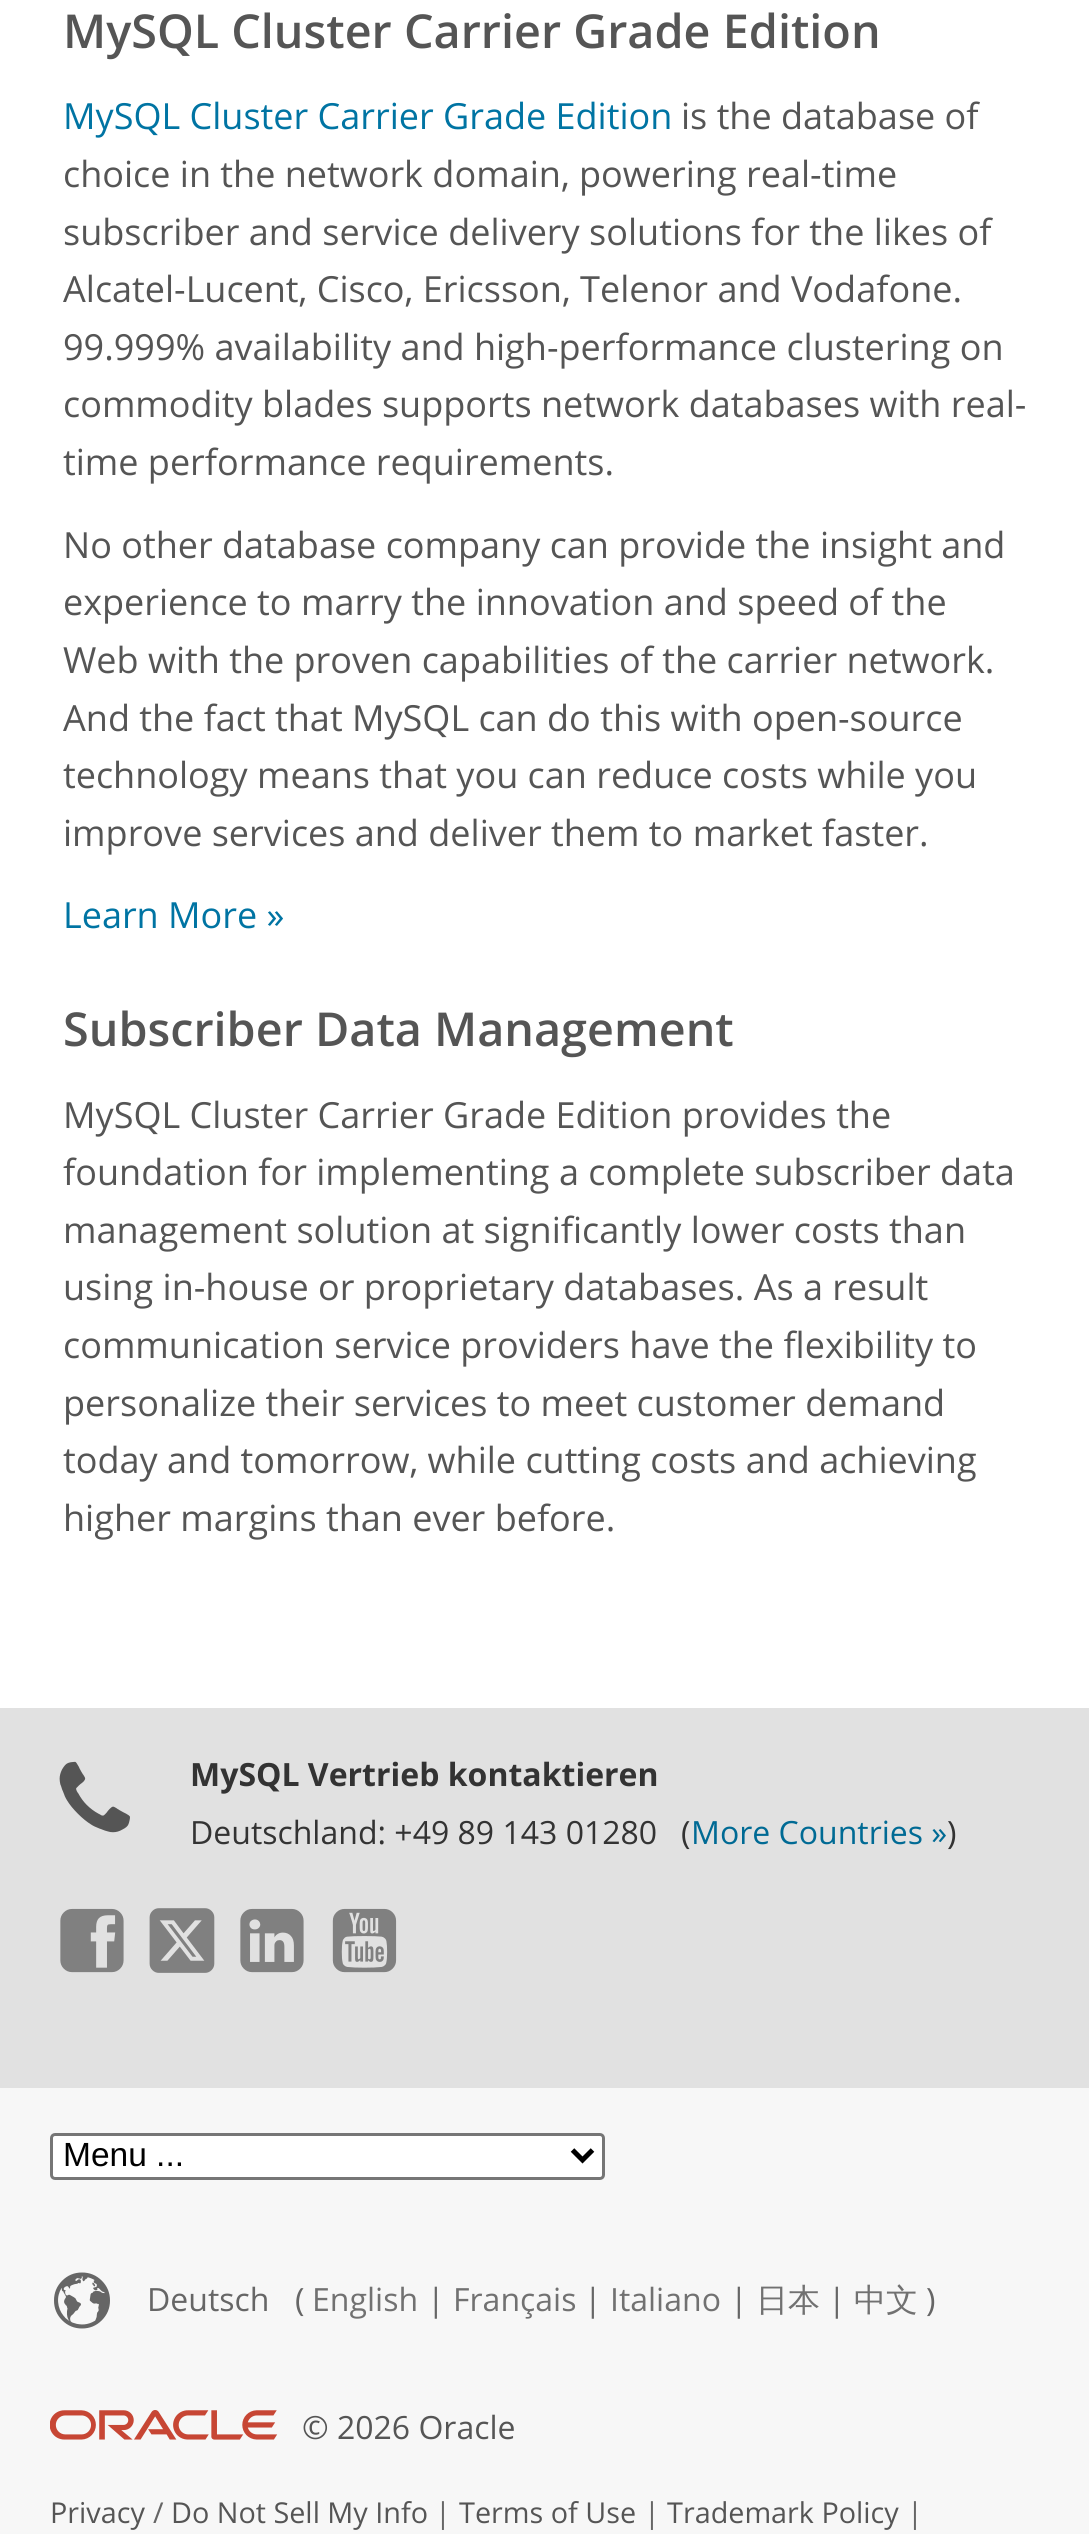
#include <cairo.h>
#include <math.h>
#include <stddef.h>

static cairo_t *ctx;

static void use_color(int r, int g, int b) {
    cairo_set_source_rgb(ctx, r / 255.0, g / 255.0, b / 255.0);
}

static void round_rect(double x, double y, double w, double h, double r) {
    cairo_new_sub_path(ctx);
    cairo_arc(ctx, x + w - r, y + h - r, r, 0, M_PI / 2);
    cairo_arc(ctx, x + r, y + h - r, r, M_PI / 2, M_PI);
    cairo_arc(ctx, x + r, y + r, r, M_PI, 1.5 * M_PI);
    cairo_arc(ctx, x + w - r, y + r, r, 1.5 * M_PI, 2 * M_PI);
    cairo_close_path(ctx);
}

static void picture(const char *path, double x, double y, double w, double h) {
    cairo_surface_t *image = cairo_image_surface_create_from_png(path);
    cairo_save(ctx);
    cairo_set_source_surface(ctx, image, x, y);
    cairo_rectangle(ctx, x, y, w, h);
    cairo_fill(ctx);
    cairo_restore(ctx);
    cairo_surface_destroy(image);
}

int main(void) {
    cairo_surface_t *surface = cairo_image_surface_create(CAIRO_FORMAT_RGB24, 1089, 2534);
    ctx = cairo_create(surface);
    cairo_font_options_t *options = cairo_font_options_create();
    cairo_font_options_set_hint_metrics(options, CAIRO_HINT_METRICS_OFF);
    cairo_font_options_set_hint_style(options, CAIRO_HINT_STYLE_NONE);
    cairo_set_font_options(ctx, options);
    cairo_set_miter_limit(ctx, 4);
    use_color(255, 255, 255);
    cairo_paint(ctx);
    cairo_select_font_face(ctx, "Open Sans SemiBold", CAIRO_FONT_SLANT_NORMAL, CAIRO_FONT_WEIGHT_NORMAL);
    cairo_set_font_size(ctx, 46.75);
    use_color(85, 85, 85);
    cairo_move_to(ctx, 63, 48);
    cairo_show_text(ctx, "MySQL Cluster Carrier Grade Edition");
    cairo_select_font_face(ctx, "Open Sans", CAIRO_FONT_SLANT_NORMAL, CAIRO_FONT_WEIGHT_NORMAL);
    cairo_set_font_size(ctx, 36);
    use_color(0, 116, 163);
    cairo_move_to(ctx, 63, 129);
    cairo_show_text(ctx, "MySQL Cluster Carrier Grade Edition");
    use_color(85, 85, 85);
    cairo_move_to(ctx, 681, 129);
    cairo_show_text(ctx, "is the database of");
    cairo_move_to(ctx, 63, 187);
    cairo_show_text(ctx, "choice in the network domain, powering real-time");
    cairo_move_to(ctx, 63, 245);
    cairo_show_text(ctx, "subscriber and service delivery solutions for the likes of");
    cairo_move_to(ctx, 63, 302);
    cairo_show_text(ctx, "Alcatel-Lucent, Cisco, Ericsson, Telenor and Vodafone.");
    cairo_move_to(ctx, 63, 360);
    cairo_show_text(ctx, "99.999% availability and high-performance clustering on");
    cairo_move_to(ctx, 63, 417);
    cairo_show_text(ctx, "commodity blades supports network databases with real-");
    cairo_move_to(ctx, 63, 475);
    cairo_show_text(ctx, "time performance requirements.");
    cairo_move_to(ctx, 63, 558);
    cairo_show_text(ctx, "No other database company can provide the insight and");
    cairo_move_to(ctx, 63, 615);
    cairo_show_text(ctx, "experience to marry the innovation and speed of the");
    cairo_move_to(ctx, 63, 673);
    cairo_show_text(ctx, "Web with the proven capabilities of the carrier network.");
    cairo_move_to(ctx, 63, 731);
    cairo_show_text(ctx, "And the fact that MySQL can do this with open-source");
    cairo_move_to(ctx, 63, 788);
    cairo_show_text(ctx, "technology means that you can reduce costs while you");
    cairo_move_to(ctx, 63, 846);
    cairo_show_text(ctx, "improve services and deliver them to market faster.");
    use_color(0, 116, 163);
    cairo_move_to(ctx, 63, 928);
    cairo_show_text(ctx, "Learn More »");
    cairo_select_font_face(ctx, "Open Sans SemiBold", CAIRO_FONT_SLANT_NORMAL, CAIRO_FONT_WEIGHT_NORMAL);
    cairo_set_font_size(ctx, 46.75);
    use_color(85, 85, 85);
    cairo_move_to(ctx, 63, 1046);
    cairo_show_text(ctx, "Subscriber Data Management");
    cairo_select_font_face(ctx, "Open Sans", CAIRO_FONT_SLANT_NORMAL, CAIRO_FONT_WEIGHT_NORMAL);
    cairo_set_font_size(ctx, 36);
    cairo_move_to(ctx, 63, 1128);
    cairo_show_text(ctx, "MySQL Cluster Carrier Grade Edition provides the");
    cairo_move_to(ctx, 63, 1185);
    cairo_show_text(ctx, "foundation for implementing a complete subscriber data");
    cairo_move_to(ctx, 63, 1243);
    cairo_show_text(ctx, "management solution at significantly lower costs than");
    cairo_move_to(ctx, 63, 1300);
    cairo_show_text(ctx, "using in-house or proprietary databases. As a result");
    cairo_move_to(ctx, 63, 1358);
    cairo_show_text(ctx, "communication service providers have the flexibility to");
    cairo_move_to(ctx, 63, 1416);
    cairo_show_text(ctx, "personalize their services to meet customer demand");
    cairo_move_to(ctx, 63, 1473);
    cairo_show_text(ctx, "today and tomorrow, while cutting costs and achieving");
    cairo_move_to(ctx, 63, 1531);
    cairo_show_text(ctx, "higher margins than ever before.");
    use_color(225, 225, 225);
    cairo_rectangle(ctx, 0, 1708, 1089, 380);
    cairo_fill(ctx);
    picture("img1.png", 59, 1761, 71, 72);
    cairo_select_font_face(ctx, "Open Sans", CAIRO_FONT_SLANT_NORMAL, CAIRO_FONT_WEIGHT_BOLD);
    cairo_set_font_size(ctx, 32);
    use_color(51, 51, 51);
    cairo_move_to(ctx, 190, 1786);
    cairo_show_text(ctx, "MySQL Vertrieb kontaktieren");
    cairo_select_font_face(ctx, "Open Sans", CAIRO_FONT_SLANT_NORMAL, CAIRO_FONT_WEIGHT_NORMAL);
    cairo_move_to(ctx, 190, 1844);
    cairo_show_text(ctx, "Deutschland: +49 89 143 01280");
    cairo_move_to(ctx, 681, 1844);
    cairo_show_text(ctx, "(");
    use_color(0, 106, 148);
    cairo_move_to(ctx, 691, 1844);
    cairo_show_text(ctx, "More Countries »");
    use_color(51, 51, 51);
    cairo_move_to(ctx, 947, 1844);
    cairo_show_text(ctx, ")");
    picture("img2.png", 60, 1908, 64, 65);
    picture("img3.png", 149, 1908, 66, 65);
    picture("img4.png", 240, 1908, 64, 65);
    picture("img5.png", 332, 1908, 65, 65);
    use_color(247, 247, 247);
    cairo_rectangle(ctx, 0, 2088, 1089, 446);
    cairo_fill(ctx);
    use_color(255, 255, 255);
    round_rect(51.5, 2134.5, 552, 44, 3.5);
    cairo_fill_preserve(ctx);
    use_color(118, 118, 118);
    cairo_set_line_width(ctx, 3);
    cairo_stroke(ctx);
    cairo_new_path(ctx);
    cairo_move_to(ctx, 572.5, 2150);
    cairo_line_to(ctx, 582.5, 2160);
    cairo_line_to(ctx, 592.5, 2150);
    use_color(0, 0, 0);
    cairo_set_line_width(ctx, 5);
    cairo_stroke(ctx);
    cairo_select_font_face(ctx, "Liberation Sans", CAIRO_FONT_SLANT_NORMAL, CAIRO_FONT_WEIGHT_NORMAL);
    cairo_set_font_size(ctx, 33.5);
    cairo_move_to(ctx, 63, 2166);
    cairo_show_text(ctx, "Menu ...");
    picture("img6.png", 54, 2272, 56, 57);
    cairo_select_font_face(ctx, "Open Sans", CAIRO_FONT_SLANT_NORMAL, CAIRO_FONT_WEIGHT_NORMAL);
    cairo_set_font_size(ctx, 32);
    use_color(102, 102, 102);
    cairo_move_to(ctx, 147, 2311);
    cairo_show_text(ctx, "Deutsch");
    cairo_move_to(ctx, 295, 2311);
    cairo_show_text(ctx, "(");
    use_color(113, 113, 113);
    cairo_move_to(ctx, 312, 2311);
    cairo_show_text(ctx, "English");
    use_color(102, 102, 102);
    cairo_move_to(ctx, 427, 2311);
    cairo_show_text(ctx, "|");
    use_color(113, 113, 113);
    cairo_move_to(ctx, 453, 2311);
    cairo_show_text(ctx, "Français");
    use_color(102, 102, 102);
    cairo_move_to(ctx, 584, 2311);
    cairo_show_text(ctx, "|");
    use_color(113, 113, 113);
    cairo_move_to(ctx, 610, 2311);
    cairo_show_text(ctx, "Italiano");
    use_color(102, 102, 102);
    cairo_move_to(ctx, 730, 2311);
    cairo_show_text(ctx, "|");
    cairo_select_font_face(ctx, "WenQuanYi Zen Hei Medium", CAIRO_FONT_SLANT_NORMAL, CAIRO_FONT_WEIGHT_NORMAL);
    use_color(113, 113, 113);
    cairo_move_to(ctx, 756, 2311);
    cairo_show_text(ctx, "日本");
    cairo_select_font_face(ctx, "Open Sans", CAIRO_FONT_SLANT_NORMAL, CAIRO_FONT_WEIGHT_NORMAL);
    use_color(102, 102, 102);
    cairo_move_to(ctx, 828, 2311);
    cairo_show_text(ctx, "|");
    cairo_select_font_face(ctx, "WenQuanYi Zen Hei Medium", CAIRO_FONT_SLANT_NORMAL, CAIRO_FONT_WEIGHT_NORMAL);
    use_color(113, 113, 113);
    cairo_move_to(ctx, 854, 2311);
    cairo_show_text(ctx, "中文");
    cairo_select_font_face(ctx, "Open Sans", CAIRO_FONT_SLANT_NORMAL, CAIRO_FONT_WEIGHT_NORMAL);
    use_color(102, 102, 102);
    cairo_move_to(ctx, 926, 2311);
    cairo_show_text(ctx, ")");
    picture("img7.png", 50, 2410, 228, 30);
    use_color(85, 85, 85);
    cairo_move_to(ctx, 302, 2439);
    cairo_show_text(ctx, "© 2026 Oracle");
    cairo_set_font_size(ctx, 28.75);
    cairo_move_to(ctx, 50, 2523);
    cairo_show_text(ctx, "Privacy");
    use_color(102, 102, 102);
    cairo_move_to(ctx, 153, 2523);
    cairo_show_text(ctx, "/");
    use_color(85, 85, 85);
    cairo_move_to(ctx, 171, 2523);
    cairo_show_text(ctx, "Do Not Sell My Info");
    use_color(102, 102, 102);
    cairo_move_to(ctx, 435, 2523);
    cairo_show_text(ctx, "|");
    use_color(85, 85, 85);
    cairo_move_to(ctx, 459, 2523);
    cairo_show_text(ctx, "Terms of Use");
    use_color(102, 102, 102);
    cairo_move_to(ctx, 644, 2523);
    cairo_show_text(ctx, "|");
    use_color(85, 85, 85);
    cairo_move_to(ctx, 667, 2523);
    cairo_show_text(ctx, "Trademark Policy");
    use_color(102, 102, 102);
    cairo_move_to(ctx, 907, 2523);
    cairo_show_text(ctx, "|");
    cairo_surface_write_to_png(surface, "result.png");
    cairo_font_options_destroy(options);
    cairo_destroy(ctx);
    cairo_surface_destroy(surface);
    return 0;
}
